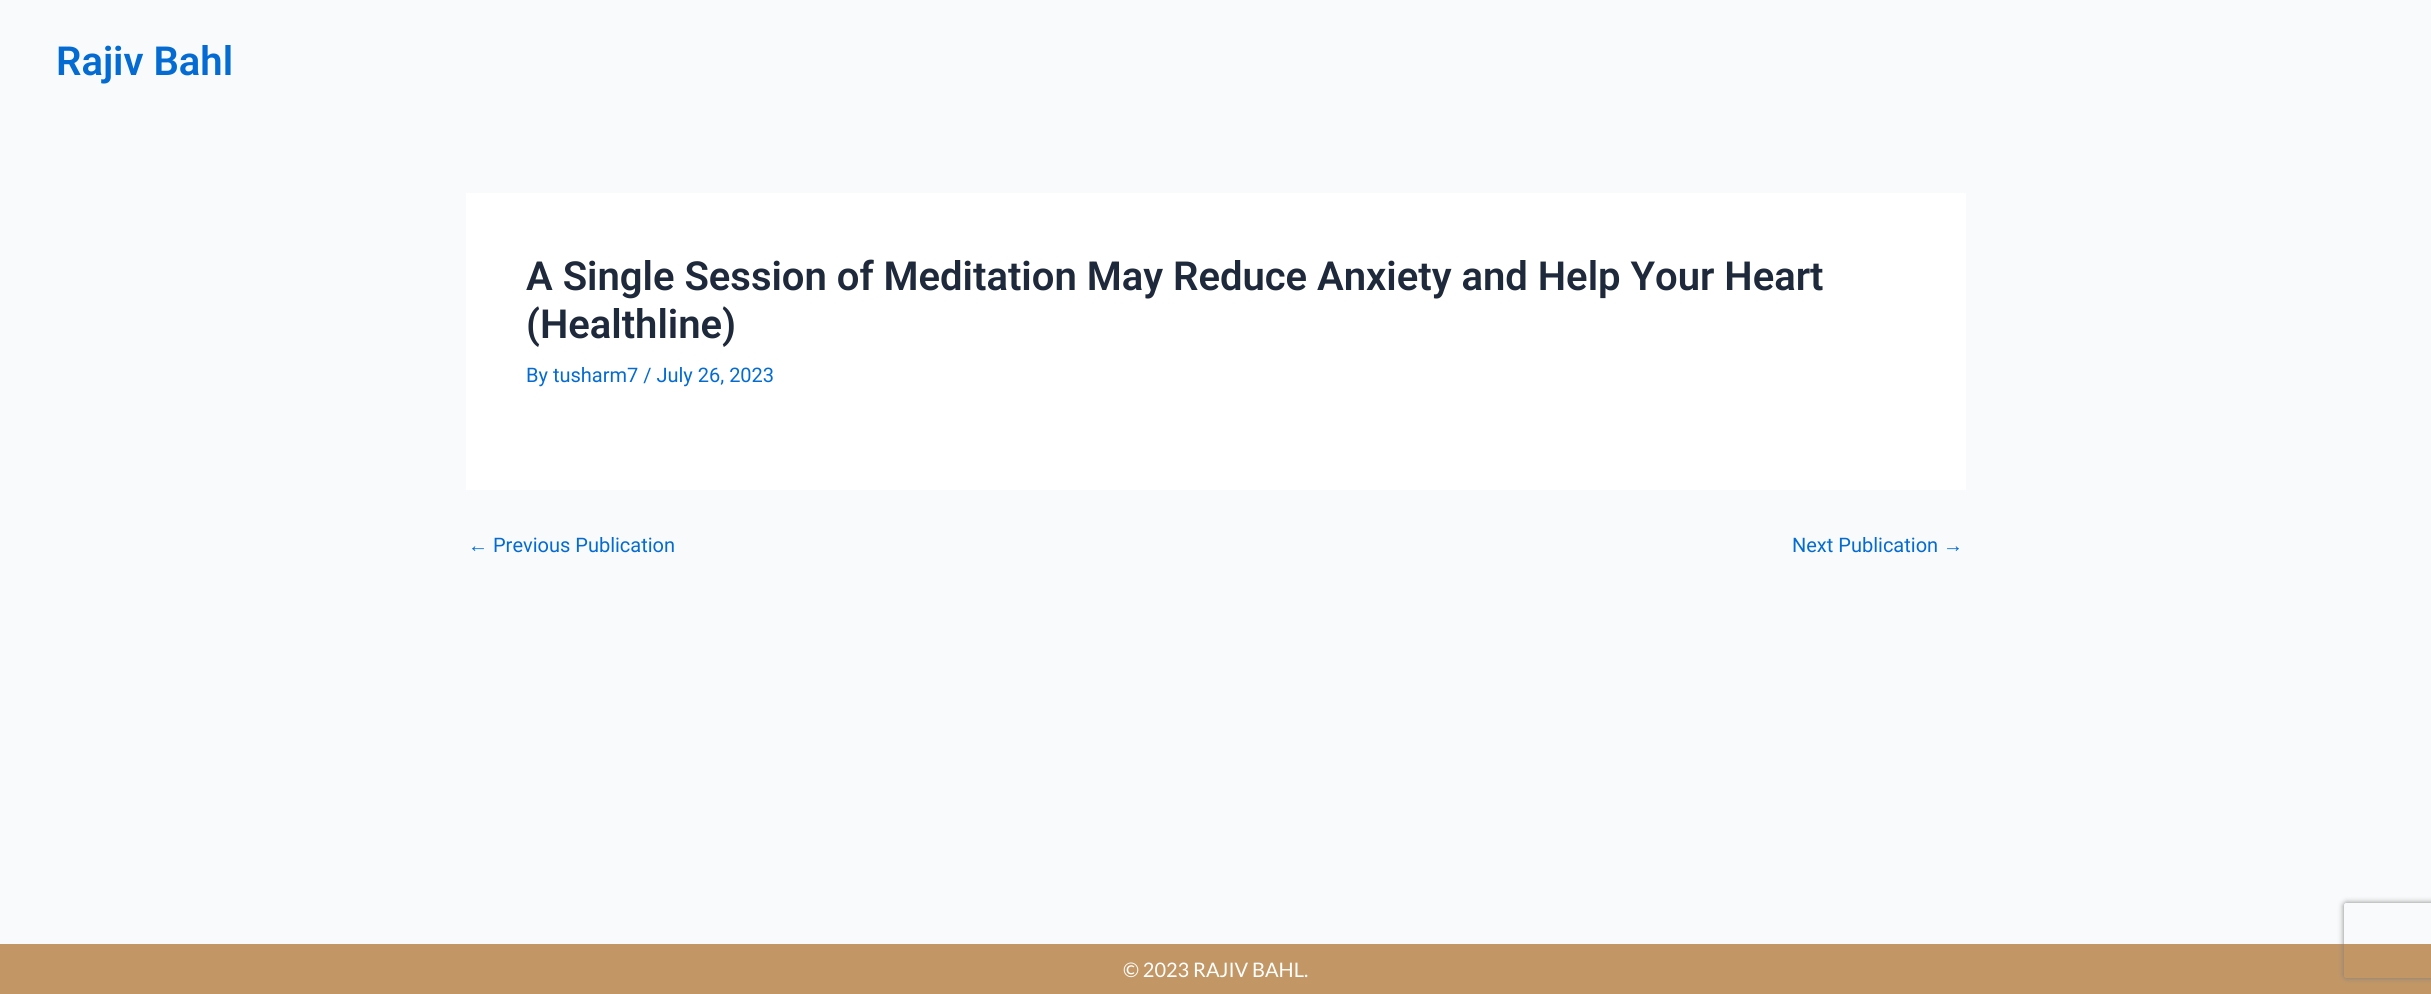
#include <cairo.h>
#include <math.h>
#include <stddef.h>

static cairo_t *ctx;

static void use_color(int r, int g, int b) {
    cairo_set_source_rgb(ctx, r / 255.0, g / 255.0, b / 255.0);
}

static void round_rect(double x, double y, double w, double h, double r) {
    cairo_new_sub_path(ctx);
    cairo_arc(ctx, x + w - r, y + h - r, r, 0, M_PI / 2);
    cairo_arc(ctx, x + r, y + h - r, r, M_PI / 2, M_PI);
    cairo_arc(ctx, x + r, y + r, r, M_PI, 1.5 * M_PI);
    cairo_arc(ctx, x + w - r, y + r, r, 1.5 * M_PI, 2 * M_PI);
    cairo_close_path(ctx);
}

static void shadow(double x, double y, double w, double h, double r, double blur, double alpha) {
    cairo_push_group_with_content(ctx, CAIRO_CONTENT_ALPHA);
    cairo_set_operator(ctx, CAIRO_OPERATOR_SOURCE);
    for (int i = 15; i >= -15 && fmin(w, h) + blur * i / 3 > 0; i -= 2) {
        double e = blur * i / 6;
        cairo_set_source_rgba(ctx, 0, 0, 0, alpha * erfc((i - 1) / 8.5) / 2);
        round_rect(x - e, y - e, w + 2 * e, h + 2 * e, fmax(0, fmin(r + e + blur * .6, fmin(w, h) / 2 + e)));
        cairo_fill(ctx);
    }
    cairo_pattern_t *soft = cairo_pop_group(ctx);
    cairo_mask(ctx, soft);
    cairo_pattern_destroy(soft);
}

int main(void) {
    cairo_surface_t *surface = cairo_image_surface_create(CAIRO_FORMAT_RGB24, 2431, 994);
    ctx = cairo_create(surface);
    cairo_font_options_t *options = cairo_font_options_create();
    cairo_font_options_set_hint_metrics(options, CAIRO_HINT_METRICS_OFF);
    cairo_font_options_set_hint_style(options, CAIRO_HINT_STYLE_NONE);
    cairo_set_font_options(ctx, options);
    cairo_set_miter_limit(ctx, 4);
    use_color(249, 250, 251);
    cairo_paint(ctx);
    cairo_select_font_face(ctx, "Roboto SemiBold", CAIRO_FONT_SLANT_NORMAL, CAIRO_FONT_WEIGHT_NORMAL);
    cairo_set_font_size(ctx, 40);
    use_color(4, 107, 210);
    cairo_move_to(ctx, 56, 75);
    cairo_show_text(ctx, "Rajiv Bahl");
    use_color(255, 255, 255);
    cairo_rectangle(ctx, 466, 193, 1500, 297);
    cairo_fill(ctx);
    use_color(30, 41, 59);
    cairo_move_to(ctx, 526, 290);
    cairo_show_text(ctx, "A Single Session of Meditation May Reduce Anxiety and Help Your Heart");
    cairo_move_to(ctx, 526, 338);
    cairo_show_text(ctx, "(Healthline)");
    cairo_select_font_face(ctx, "Roboto", CAIRO_FONT_SLANT_NORMAL, CAIRO_FONT_WEIGHT_NORMAL);
    cairo_set_font_size(ctx, 20);
    use_color(4, 107, 210);
    cairo_move_to(ctx, 526, 382);
    cairo_show_text(ctx, "By tusharm7 / July 26, 2023");
    cairo_select_font_face(ctx, "Liberation Sans", CAIRO_FONT_SLANT_NORMAL, CAIRO_FONT_WEIGHT_NORMAL);
    cairo_move_to(ctx, 468, 552);
    cairo_show_text(ctx, "←");
    cairo_select_font_face(ctx, "Roboto", CAIRO_FONT_SLANT_NORMAL, CAIRO_FONT_WEIGHT_NORMAL);
    cairo_move_to(ctx, 493, 552);
    cairo_show_text(ctx, "Previous Publication");
    cairo_move_to(ctx, 1792, 552);
    cairo_show_text(ctx, "Next Publication");
    cairo_select_font_face(ctx, "Liberation Sans", CAIRO_FONT_SLANT_NORMAL, CAIRO_FONT_WEIGHT_NORMAL);
    cairo_move_to(ctx, 1943, 552);
    cairo_show_text(ctx, "→");
    use_color(194, 151, 101);
    cairo_rectangle(ctx, 0, 944, 2431, 50);
    cairo_fill(ctx);
    cairo_select_font_face(ctx, "Lato", CAIRO_FONT_SLANT_NORMAL, CAIRO_FONT_WEIGHT_NORMAL);
    use_color(255, 255, 255);
    cairo_move_to(ctx, 1123, 977);
    cairo_show_text(ctx, "© 2023 RAJIV BAHL.");
    cairo_save(ctx);
    cairo_set_fill_rule(ctx, CAIRO_FILL_RULE_EVEN_ODD);
    cairo_new_path(ctx);
    cairo_move_to(ctx, 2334, 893);
    cairo_line_to(ctx, 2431, 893);
    cairo_line_to(ctx, 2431, 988);
    cairo_line_to(ctx, 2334, 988);
    cairo_close_path(ctx);
    cairo_move_to(ctx, 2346.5, 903);
    cairo_line_to(ctx, 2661.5, 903);
    cairo_curve_to(ctx, 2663, 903, 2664, 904, 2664, 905.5);
    cairo_line_to(ctx, 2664, 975.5);
    cairo_curve_to(ctx, 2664, 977, 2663, 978, 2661.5, 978);
    cairo_line_to(ctx, 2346.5, 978);
    cairo_curve_to(ctx, 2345, 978, 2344, 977, 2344, 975.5);
    cairo_line_to(ctx, 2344, 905.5);
    cairo_curve_to(ctx, 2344, 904, 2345, 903, 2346.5, 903);
    cairo_close_path(ctx);
    cairo_clip(ctx);
    use_color(128, 128, 128);
    shadow(2344, 903, 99, 75, 2.5, 3, 1);
    cairo_restore(ctx);
    cairo_surface_write_to_png(surface, "result.png");
    cairo_font_options_destroy(options);
    cairo_destroy(ctx);
    cairo_surface_destroy(surface);
    return 0;
}
